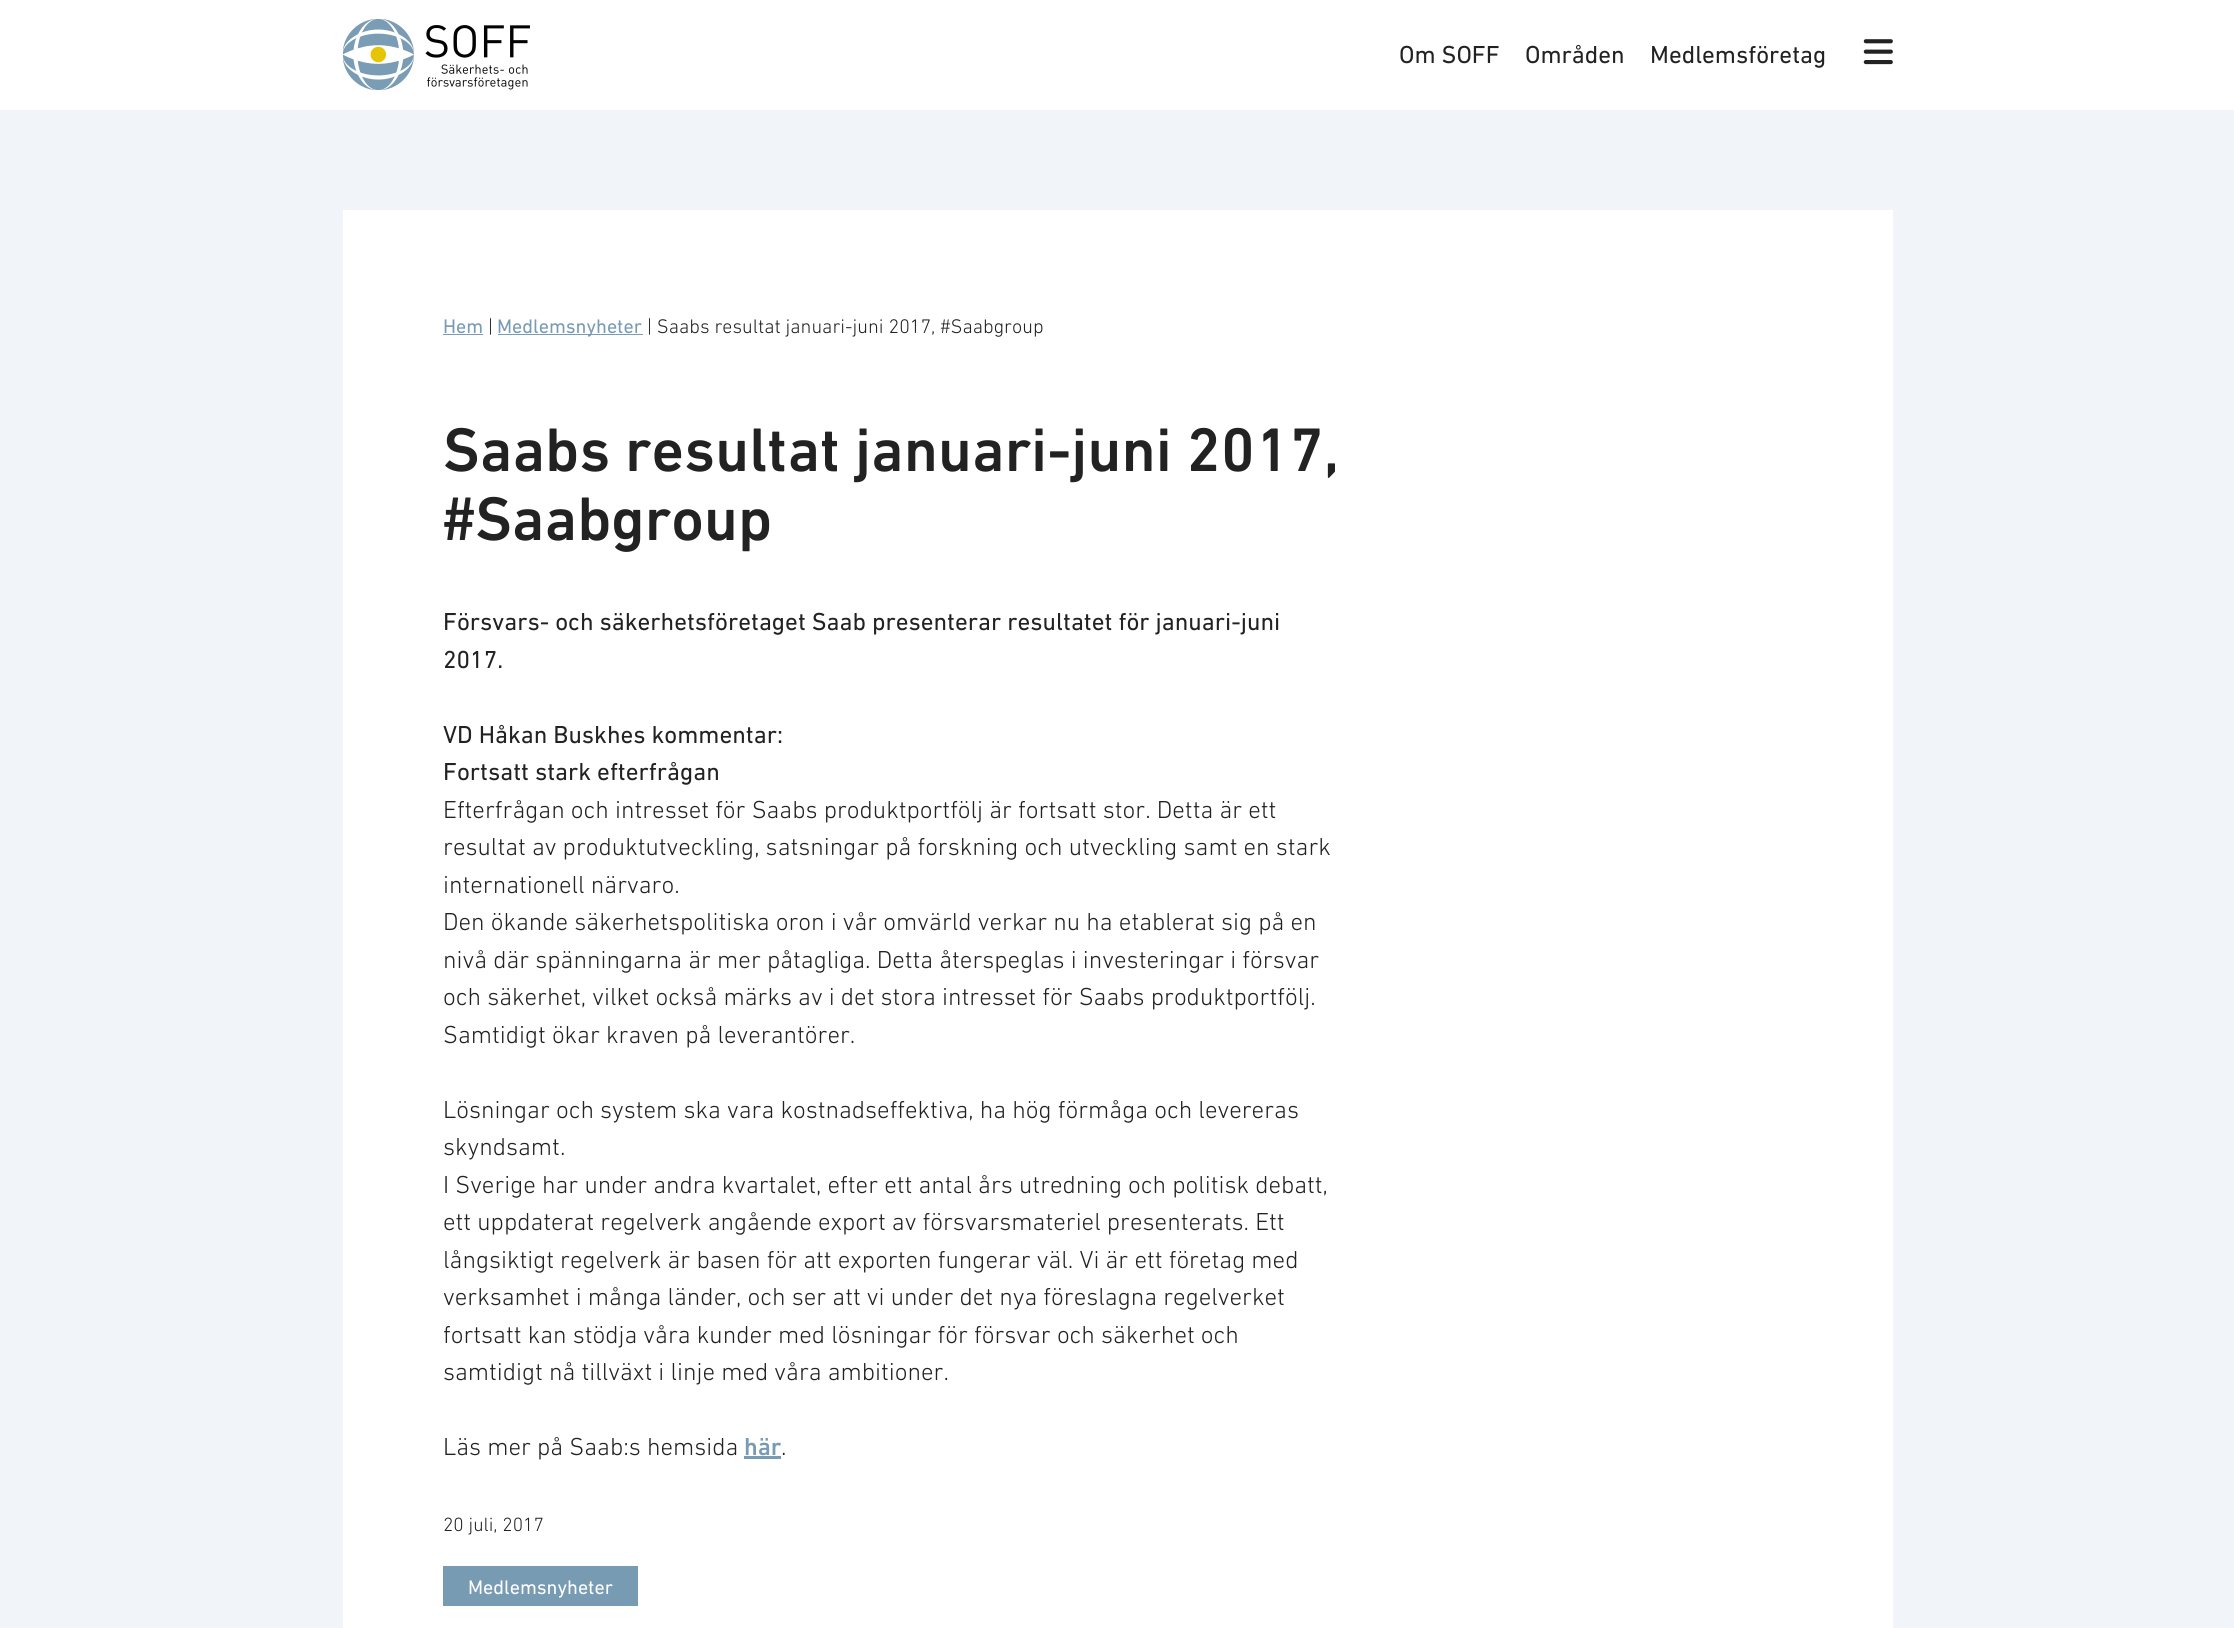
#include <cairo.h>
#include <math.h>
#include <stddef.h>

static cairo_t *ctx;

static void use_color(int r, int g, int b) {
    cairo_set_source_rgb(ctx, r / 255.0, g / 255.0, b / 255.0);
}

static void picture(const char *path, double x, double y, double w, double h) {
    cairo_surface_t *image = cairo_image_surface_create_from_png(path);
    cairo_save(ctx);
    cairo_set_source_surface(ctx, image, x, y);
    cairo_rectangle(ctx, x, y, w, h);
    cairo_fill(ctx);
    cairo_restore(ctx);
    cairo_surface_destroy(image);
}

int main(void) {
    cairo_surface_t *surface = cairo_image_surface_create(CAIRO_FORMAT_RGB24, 2234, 1628);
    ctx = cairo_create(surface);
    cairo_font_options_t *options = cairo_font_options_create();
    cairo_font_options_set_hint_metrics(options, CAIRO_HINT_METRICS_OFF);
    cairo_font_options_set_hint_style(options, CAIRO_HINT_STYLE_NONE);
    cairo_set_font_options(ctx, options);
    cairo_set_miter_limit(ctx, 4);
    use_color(241, 244, 248);
    cairo_paint(ctx);
    use_color(255, 255, 255);
    cairo_rectangle(ctx, 0, 0, 2234, 110);
    cairo_fill(ctx);
    picture("img1.png", 343, 19, 187, 71);
    cairo_select_font_face(ctx, "DIN Next", CAIRO_FONT_SLANT_NORMAL, CAIRO_FONT_WEIGHT_NORMAL);
    cairo_set_font_size(ctx, 25);
    use_color(34, 34, 34);
    cairo_move_to(ctx, 1399, 63);
    cairo_show_text(ctx, "Om SOFF");
    cairo_move_to(ctx, 1525, 63);
    cairo_show_text(ctx, "Områden");
    cairo_move_to(ctx, 1650, 63);
    cairo_show_text(ctx, "Medlemsföretag");
    picture("img2.png", 1863, 39, 30, 26);
    use_color(255, 255, 255);
    cairo_rectangle(ctx, 343, 210, 1550, 1418);
    cairo_fill(ctx);
    cairo_set_font_size(ctx, 20);
    use_color(120, 155, 180);
    cairo_move_to(ctx, 443, 333);
    cairo_show_text(ctx, "Hem");
    cairo_rectangle(ctx, 443, 334, 40, 1);
    cairo_fill(ctx);
    cairo_select_font_face(ctx, "DIN Next Light", CAIRO_FONT_SLANT_NORMAL, CAIRO_FONT_WEIGHT_NORMAL);
    use_color(34, 34, 34);
    cairo_move_to(ctx, 488, 333);
    cairo_show_text(ctx, "|");
    use_color(120, 155, 180);
    cairo_rectangle(ctx, 498, 334, 145, 1);
    cairo_fill(ctx);
    cairo_select_font_face(ctx, "DIN Next", CAIRO_FONT_SLANT_NORMAL, CAIRO_FONT_WEIGHT_NORMAL);
    cairo_move_to(ctx, 497, 333);
    cairo_show_text(ctx, "Medlemsnyheter");
    cairo_select_font_face(ctx, "DIN Next Light", CAIRO_FONT_SLANT_NORMAL, CAIRO_FONT_WEIGHT_NORMAL);
    use_color(34, 34, 34);
    cairo_move_to(ctx, 647, 333);
    cairo_show_text(ctx, "| Saabs resultat januari-juni 2017, #Saabgroup");
    cairo_select_font_face(ctx, "DIN Next Medium", CAIRO_FONT_SLANT_NORMAL, CAIRO_FONT_WEIGHT_NORMAL);
    cairo_set_font_size(ctx, 62.5);
    cairo_move_to(ctx, 443, 471);
    cairo_show_text(ctx, "Saabs resultat januari-juni 2017,");
    cairo_move_to(ctx, 443, 540);
    cairo_show_text(ctx, "#Saabgroup");
    cairo_select_font_face(ctx, "DIN Next", CAIRO_FONT_SLANT_NORMAL, CAIRO_FONT_WEIGHT_NORMAL);
    cairo_set_font_size(ctx, 25);
    cairo_move_to(ctx, 443, 630);
    cairo_show_text(ctx, "Försvars- och säkerhetsföretaget Saab presenterar resultatet för januari-juni");
    cairo_move_to(ctx, 443, 668);
    cairo_show_text(ctx, "2017.");
    cairo_move_to(ctx, 443, 743);
    cairo_show_text(ctx, "VD Håkan Buskhes kommentar:");
    cairo_move_to(ctx, 443, 780);
    cairo_show_text(ctx, "Fortsatt stark efterfrågan");
    cairo_select_font_face(ctx, "DIN Next Light", CAIRO_FONT_SLANT_NORMAL, CAIRO_FONT_WEIGHT_NORMAL);
    cairo_move_to(ctx, 443, 818);
    cairo_show_text(ctx, "Efterfrågan och intresset för Saabs produktportfölj är fortsatt stor. Detta är ett");
    cairo_move_to(ctx, 443, 855);
    cairo_show_text(ctx, "resultat av produktutveckling, satsningar på forskning och utveckling samt en stark");
    cairo_move_to(ctx, 443, 893);
    cairo_show_text(ctx, "internationell närvaro.");
    cairo_move_to(ctx, 443, 930);
    cairo_show_text(ctx, "Den ökande säkerhetspolitiska oron i vår omvärld verkar nu ha etablerat sig på en");
    cairo_move_to(ctx, 443, 968);
    cairo_show_text(ctx, "nivå där spänningarna är mer påtagliga. Detta återspeglas i investeringar i försvar");
    cairo_move_to(ctx, 443, 1005);
    cairo_show_text(ctx, "och säkerhet, vilket också märks av i det stora intresset för Saabs produktportfölj.");
    cairo_move_to(ctx, 443, 1043);
    cairo_show_text(ctx, "Samtidigt ökar kraven på leverantörer.");
    cairo_move_to(ctx, 443, 1118);
    cairo_show_text(ctx, "Lösningar och system ska vara kostnadseffektiva, ha hög förmåga och levereras");
    cairo_move_to(ctx, 443, 1155);
    cairo_show_text(ctx, "skyndsamt.");
    cairo_move_to(ctx, 443, 1193);
    cairo_show_text(ctx, "I Sverige har under andra kvartalet, efter ett antal års utredning och politisk debatt,");
    cairo_move_to(ctx, 443, 1230);
    cairo_show_text(ctx, "ett uppdaterat regelverk angående export av försvarsmateriel presenterats. Ett");
    cairo_move_to(ctx, 443, 1268);
    cairo_show_text(ctx, "långsiktigt regelverk är basen för att exporten fungerar väl. Vi är ett företag med");
    cairo_move_to(ctx, 443, 1305);
    cairo_show_text(ctx, "verksamhet i många länder, och ser att vi under det nya föreslagna regelverket");
    cairo_move_to(ctx, 443, 1343);
    cairo_show_text(ctx, "fortsatt kan stödja våra kunder med lösningar för försvar och säkerhet och");
    cairo_move_to(ctx, 443, 1380);
    cairo_show_text(ctx, "samtidigt nå tillväxt i linje med våra ambitioner.");
    cairo_move_to(ctx, 443, 1455);
    cairo_show_text(ctx, "Läs mer på Saab:s hemsida");
    cairo_select_font_face(ctx, "DIN Next Medium", CAIRO_FONT_SLANT_NORMAL, CAIRO_FONT_WEIGHT_NORMAL);
    use_color(120, 155, 180);
    cairo_move_to(ctx, 744, 1455);
    cairo_show_text(ctx, "här");
    cairo_rectangle(ctx, 744, 1456, 37, 3);
    cairo_fill(ctx);
    cairo_select_font_face(ctx, "DIN Next Light", CAIRO_FONT_SLANT_NORMAL, CAIRO_FONT_WEIGHT_NORMAL);
    use_color(34, 34, 34);
    cairo_move_to(ctx, 781, 1455);
    cairo_show_text(ctx, ".");
    cairo_set_font_size(ctx, 19.5);
    cairo_move_to(ctx, 443, 1531);
    cairo_show_text(ctx, "20 juli, 2017");
    use_color(120, 155, 180);
    cairo_rectangle(ctx, 443, 1566, 195, 40);
    cairo_fill(ctx);
    cairo_select_font_face(ctx, "DIN Next", CAIRO_FONT_SLANT_NORMAL, CAIRO_FONT_WEIGHT_NORMAL);
    cairo_set_font_size(ctx, 20);
    use_color(255, 255, 255);
    cairo_move_to(ctx, 468, 1594);
    cairo_show_text(ctx, "Medlemsnyheter");
    cairo_surface_write_to_png(surface, "result.png");
    cairo_font_options_destroy(options);
    cairo_destroy(ctx);
    cairo_surface_destroy(surface);
    return 0;
}
